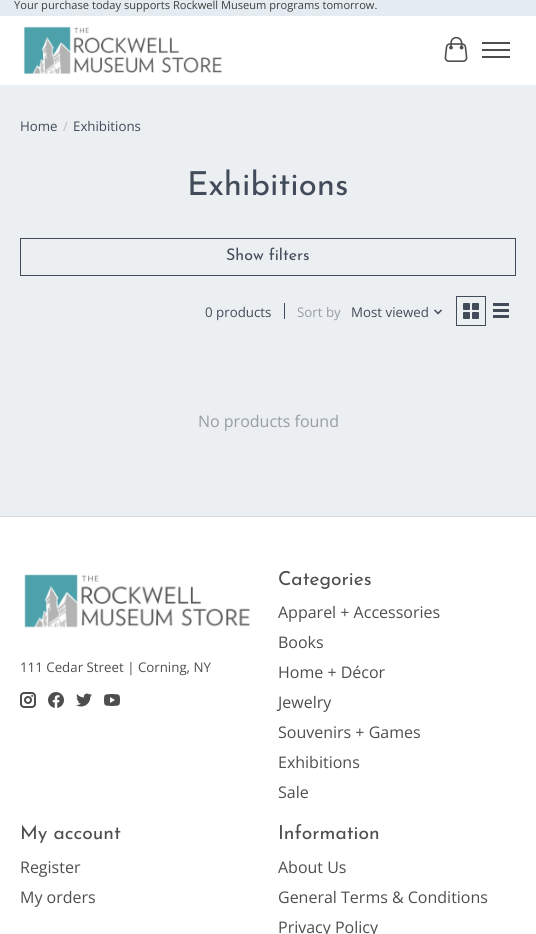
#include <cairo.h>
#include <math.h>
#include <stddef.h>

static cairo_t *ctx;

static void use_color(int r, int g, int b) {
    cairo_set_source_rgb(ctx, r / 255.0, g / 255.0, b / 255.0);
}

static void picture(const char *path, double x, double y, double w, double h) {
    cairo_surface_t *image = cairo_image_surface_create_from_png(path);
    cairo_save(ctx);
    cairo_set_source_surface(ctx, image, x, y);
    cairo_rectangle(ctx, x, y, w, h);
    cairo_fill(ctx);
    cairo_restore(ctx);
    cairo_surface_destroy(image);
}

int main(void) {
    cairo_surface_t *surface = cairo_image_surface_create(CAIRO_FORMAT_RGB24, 536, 934);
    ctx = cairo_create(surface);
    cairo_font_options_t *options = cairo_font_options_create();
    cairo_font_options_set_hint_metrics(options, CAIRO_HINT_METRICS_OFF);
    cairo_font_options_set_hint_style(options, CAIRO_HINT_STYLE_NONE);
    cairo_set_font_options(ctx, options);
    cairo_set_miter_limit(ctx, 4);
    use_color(236, 239, 241);
    cairo_paint(ctx);
    use_color(255, 255, 255);
    cairo_rectangle(ctx, 0, 16, 536, 69);
    cairo_fill(ctx);
    use_color(229, 236, 241);
    cairo_rectangle(ctx, 0, 0, 536, 16);
    cairo_fill(ctx);
    cairo_select_font_face(ctx, "Open Sans", CAIRO_FONT_SLANT_NORMAL, CAIRO_FONT_WEIGHT_NORMAL);
    cairo_set_font_size(ctx, 11.1);
    use_color(62, 62, 62);
    cairo_move_to(ctx, 14, 9);
    cairo_show_text(ctx, "Your purchase today supports Rockwell Museum programs tomorrow.");
    picture("img1.png", 23, 26, 199, 48);
    picture("img2.png", 444, 37, 24, 25);
    use_color(78, 78, 78);
    cairo_rectangle(ctx, 482, 49, 28, 2);
    cairo_fill(ctx);
    cairo_rectangle(ctx, 482, 42, 28, 2);
    cairo_fill(ctx);
    cairo_rectangle(ctx, 482, 56, 28, 2);
    cairo_fill(ctx);
    cairo_set_font_size(ctx, 13.3);
    use_color(66, 75, 90);
    cairo_move_to(ctx, 20, 131);
    cairo_show_text(ctx, "Home");
    use_color(185, 190, 196);
    cairo_move_to(ctx, 63, 131);
    cairo_show_text(ctx, "/");
    use_color(66, 75, 90);
    cairo_move_to(ctx, 73, 131);
    cairo_show_text(ctx, "Exhibitions");
    cairo_select_font_face(ctx, "Josefin Sans", CAIRO_FONT_SLANT_NORMAL, CAIRO_FONT_WEIGHT_NORMAL);
    cairo_set_font_size(ctx, 33);
    cairo_move_to(ctx, 187, 195);
    cairo_show_text(ctx, "Exhibitions");
    cairo_rectangle(ctx, 20.5, 238.5, 495, 37);
    cairo_set_line_width(ctx, 1);
    cairo_stroke(ctx);
    cairo_set_font_size(ctx, 16);
    cairo_move_to(ctx, 226, 260);
    cairo_show_text(ctx, "Show filters");
    cairo_select_font_face(ctx, "Open Sans", CAIRO_FONT_SLANT_NORMAL, CAIRO_FONT_WEIGHT_NORMAL);
    cairo_set_font_size(ctx, 13.3);
    cairo_move_to(ctx, 205, 317);
    cairo_show_text(ctx, "0 products");
    cairo_rectangle(ctx, 284, 303, 1, 16);
    cairo_fill(ctx);
    use_color(151, 157, 166);
    cairo_move_to(ctx, 297, 317);
    cairo_show_text(ctx, "Sort by");
    use_color(66, 75, 90);
    cairo_move_to(ctx, 351, 317);
    cairo_show_text(ctx, "Most viewed");
    picture("img3.png", 434, 309, 8, 6);
    cairo_rectangle(ctx, 456.5, 296.5, 29, 29);
    cairo_stroke(ctx);
    picture("img4.png", 463, 303, 16, 16);
    cairo_rectangle(ctx, 493, 303, 16, 3);
    cairo_fill(ctx);
    cairo_rectangle(ctx, 493, 309, 16, 3);
    cairo_fill(ctx);
    cairo_rectangle(ctx, 493, 315, 16, 3);
    cairo_fill(ctx);
    cairo_set_font_size(ctx, 16);
    use_color(151, 157, 166);
    cairo_move_to(ctx, 198, 427);
    cairo_show_text(ctx, "No products found");
    use_color(255, 255, 255);
    cairo_rectangle(ctx, 0, 517, 536, 417);
    cairo_fill(ctx);
    use_color(220, 220, 220);
    cairo_rectangle(ctx, 0, 516, 536, 1);
    cairo_fill(ctx);
    picture("img5.png", 24, 574, 227, 54);
    cairo_set_font_size(ctx, 13.3);
    use_color(78, 78, 78);
    cairo_move_to(ctx, 20, 672);
    cairo_show_text(ctx, "111 Cedar Street | Corning, NY");
    picture("img6.png", 20, 692, 16, 16);
    picture("img7.png", 48, 692, 16, 16);
    picture("img8.png", 76, 693, 16, 14);
    picture("img9.png", 104, 694, 16, 12);
    cairo_select_font_face(ctx, "Josefin Sans", CAIRO_FONT_SLANT_NORMAL, CAIRO_FONT_WEIGHT_NORMAL);
    cairo_set_font_size(ctx, 19.25);
    cairo_move_to(ctx, 278, 585);
    cairo_show_text(ctx, "Categories");
    cairo_select_font_face(ctx, "Open Sans", CAIRO_FONT_SLANT_NORMAL, CAIRO_FONT_WEIGHT_NORMAL);
    cairo_set_font_size(ctx, 16);
    cairo_move_to(ctx, 278, 618);
    cairo_show_text(ctx, "Apparel + Accessories");
    cairo_move_to(ctx, 278, 648);
    cairo_show_text(ctx, "Books");
    cairo_move_to(ctx, 278, 678);
    cairo_show_text(ctx, "Home + Décor");
    cairo_move_to(ctx, 278, 708);
    cairo_show_text(ctx, "Jewelry");
    cairo_move_to(ctx, 278, 738);
    cairo_show_text(ctx, "Souvenirs + Games");
    cairo_move_to(ctx, 278, 768);
    cairo_show_text(ctx, "Exhibitions");
    cairo_move_to(ctx, 278, 798);
    cairo_show_text(ctx, "Sale");
    cairo_select_font_face(ctx, "Josefin Sans", CAIRO_FONT_SLANT_NORMAL, CAIRO_FONT_WEIGHT_NORMAL);
    cairo_set_font_size(ctx, 19.25);
    cairo_move_to(ctx, 20, 839);
    cairo_show_text(ctx, "My account");
    cairo_select_font_face(ctx, "Open Sans", CAIRO_FONT_SLANT_NORMAL, CAIRO_FONT_WEIGHT_NORMAL);
    cairo_set_font_size(ctx, 16);
    cairo_move_to(ctx, 20, 873);
    cairo_show_text(ctx, "Register");
    cairo_move_to(ctx, 20, 903);
    cairo_show_text(ctx, "My orders");
    cairo_select_font_face(ctx, "Josefin Sans", CAIRO_FONT_SLANT_NORMAL, CAIRO_FONT_WEIGHT_NORMAL);
    cairo_set_font_size(ctx, 19.25);
    cairo_move_to(ctx, 278, 839);
    cairo_show_text(ctx, "Information");
    cairo_select_font_face(ctx, "Open Sans", CAIRO_FONT_SLANT_NORMAL, CAIRO_FONT_WEIGHT_NORMAL);
    cairo_set_font_size(ctx, 16);
    cairo_move_to(ctx, 278, 873);
    cairo_show_text(ctx, "About Us");
    cairo_move_to(ctx, 278, 903);
    cairo_show_text(ctx, "General Terms & Conditions");
    cairo_move_to(ctx, 278, 933);
    cairo_show_text(ctx, "Privacy Policy");
    cairo_surface_write_to_png(surface, "result.png");
    cairo_font_options_destroy(options);
    cairo_destroy(ctx);
    cairo_surface_destroy(surface);
    return 0;
}
